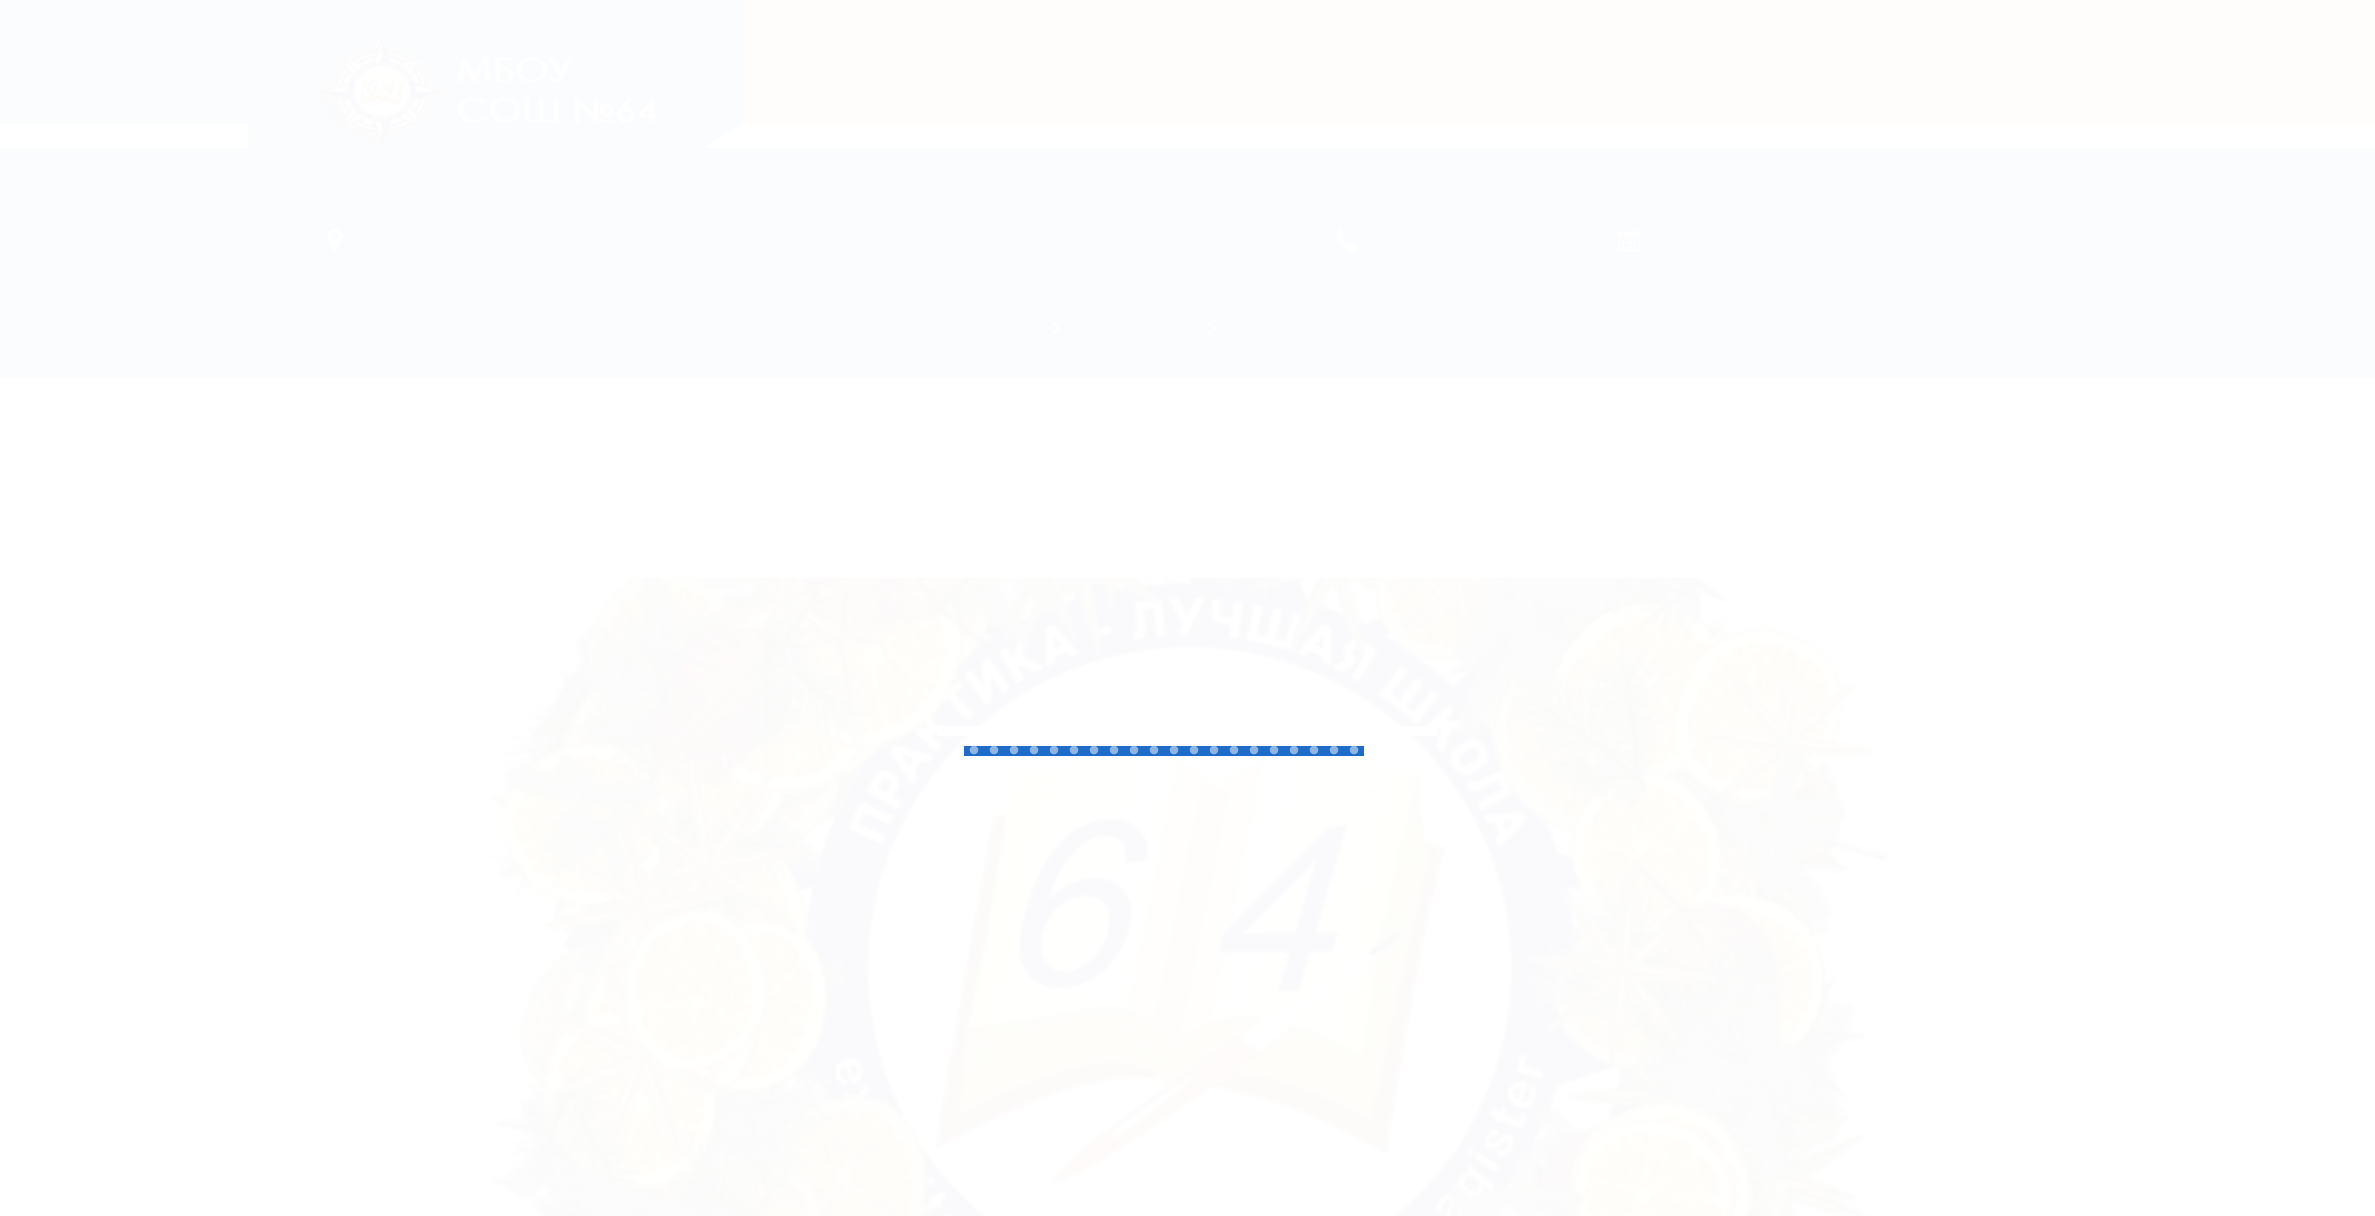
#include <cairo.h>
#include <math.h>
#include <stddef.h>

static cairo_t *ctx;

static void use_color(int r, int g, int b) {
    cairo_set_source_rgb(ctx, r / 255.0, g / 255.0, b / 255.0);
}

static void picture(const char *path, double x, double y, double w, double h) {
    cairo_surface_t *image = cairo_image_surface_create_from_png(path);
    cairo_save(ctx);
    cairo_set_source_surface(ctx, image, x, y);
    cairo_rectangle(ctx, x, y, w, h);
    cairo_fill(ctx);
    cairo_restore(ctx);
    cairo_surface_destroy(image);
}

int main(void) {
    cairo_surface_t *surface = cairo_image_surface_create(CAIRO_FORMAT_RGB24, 2375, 1216);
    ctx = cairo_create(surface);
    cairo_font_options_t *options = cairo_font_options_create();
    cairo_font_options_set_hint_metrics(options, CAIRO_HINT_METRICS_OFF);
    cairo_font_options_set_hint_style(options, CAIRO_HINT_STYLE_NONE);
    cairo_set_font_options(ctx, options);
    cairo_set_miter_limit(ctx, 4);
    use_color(255, 255, 255);
    cairo_paint(ctx);
    use_color(251, 252, 254);
    cairo_rectangle(ctx, 0, 0, 744, 124);
    cairo_fill(ctx);
    cairo_rectangle(ctx, 248, 124, 400, 24);
    cairo_fill(ctx);
    cairo_rectangle(ctx, 0, 148, 2375, 230);
    cairo_fill(ctx);
    cairo_new_path(ctx);
    cairo_move_to(ctx, 642, 124);
    cairo_line_to(ctx, 742, 124);
    cairo_line_to(ctx, 642, 184);
    cairo_close_path(ctx);
    cairo_fill(ctx);
    picture("img1.png", 308, 36, 351, 112);
    use_color(254, 253, 251);
    cairo_rectangle(ctx, 744, 0, 1631, 124);
    cairo_fill(ctx);
    picture("img2.png", 327, 229, 16, 23);
    picture("img3.png", 1336, 229, 22, 23);
    picture("img4.png", 1618, 229, 22, 23);
    picture("img5.png", 1052, 321, 8, 14);
    picture("img5.png", 1208, 321, 8, 14);
    picture("img6.png", 478, 578, 1416, 638);
    use_color(255, 255, 255);
    cairo_rectangle(ctx, 938, 726, 500, 10);
    cairo_fill(ctx);
    use_color(30, 108, 199);
    cairo_rectangle(ctx, 964, 746, 400, 10);
    cairo_fill(ctx);
    cairo_new_path(ctx);
    cairo_move_to(ctx, 974, 750);
    cairo_line_to(ctx, 1354.4, 750);
    use_color(143, 182, 227);
    cairo_set_line_width(ctx, 8.5);
    cairo_set_line_cap(ctx, CAIRO_LINE_CAP_ROUND);
    cairo_set_dash(ctx, (double[]){0, 20}, 2, 0);
    cairo_stroke(ctx);
    cairo_surface_write_to_png(surface, "result.png");
    cairo_font_options_destroy(options);
    cairo_destroy(ctx);
    cairo_surface_destroy(surface);
    return 0;
}
